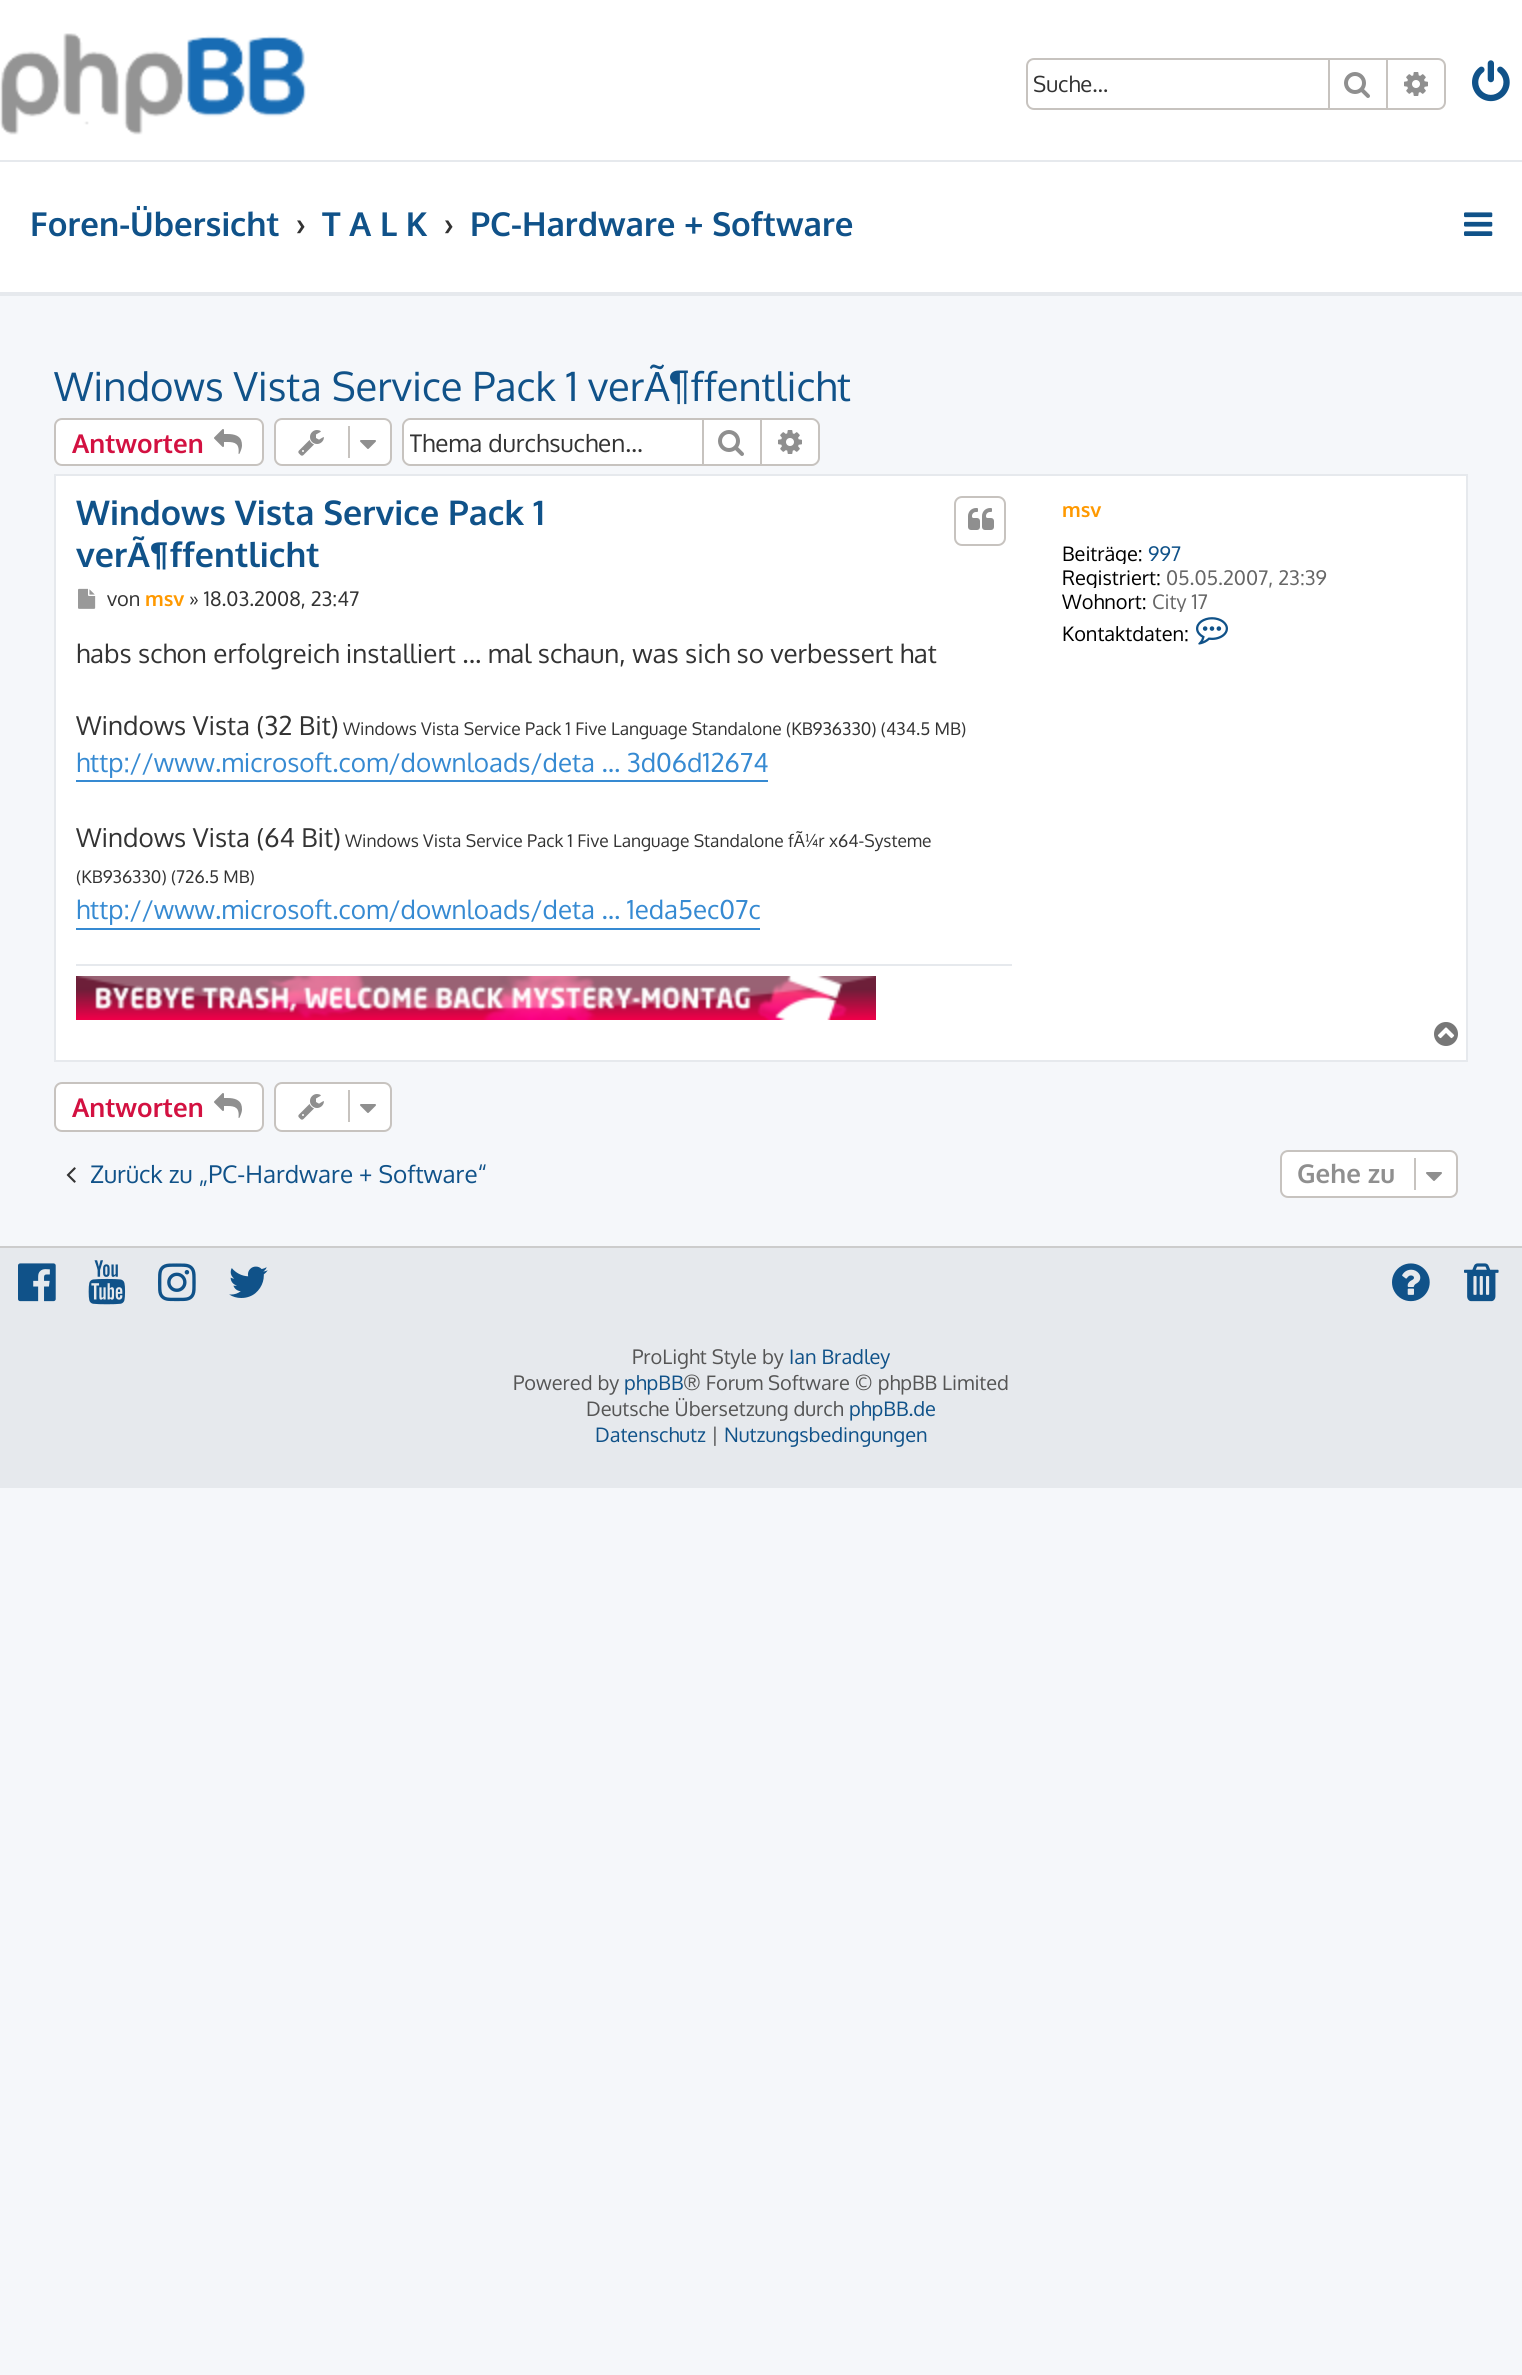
#include <cairo.h>
#include <math.h>
#include <stddef.h>

static cairo_t *ctx;

static void use_color(int r, int g, int b) {
    cairo_set_source_rgb(ctx, r / 255.0, g / 255.0, b / 255.0);
}

static void round_rect(double x, double y, double w, double h, double r) {
    cairo_new_sub_path(ctx);
    cairo_arc(ctx, x + w - r, y + h - r, r, 0, M_PI / 2);
    cairo_arc(ctx, x + r, y + h - r, r, M_PI / 2, M_PI);
    cairo_arc(ctx, x + r, y + r, r, M_PI, 1.5 * M_PI);
    cairo_arc(ctx, x + w - r, y + r, r, 1.5 * M_PI, 2 * M_PI);
    cairo_close_path(ctx);
}

static void picture(const char *path, double x, double y, double w, double h) {
    cairo_surface_t *image = cairo_image_surface_create_from_png(path);
    cairo_save(ctx);
    cairo_set_source_surface(ctx, image, x, y);
    cairo_rectangle(ctx, x, y, w, h);
    cairo_fill(ctx);
    cairo_restore(ctx);
    cairo_surface_destroy(image);
}

int main(void) {
    cairo_surface_t *surface = cairo_image_surface_create(CAIRO_FORMAT_RGB24, 1522, 2375);
    ctx = cairo_create(surface);
    cairo_font_options_t *options = cairo_font_options_create();
    cairo_font_options_set_hint_metrics(options, CAIRO_HINT_METRICS_OFF);
    cairo_font_options_set_hint_style(options, CAIRO_HINT_STYLE_NONE);
    cairo_set_font_options(ctx, options);
    cairo_set_miter_limit(ctx, 4);
    use_color(245, 247, 250);
    cairo_paint(ctx);
    use_color(255, 255, 255);
    cairo_rectangle(ctx, 0, 0, 1522, 160);
    cairo_fill(ctx);
    use_color(230, 233, 237);
    cairo_rectangle(ctx, 0, 160, 1522, 2);
    cairo_fill(ctx);
    picture("img1.png", 0, 33, 306, 102);
    round_rect(1027, 59, 418, 50, 7);
    use_color(199, 195, 191);
    cairo_stroke(ctx);
    cairo_select_font_face(ctx, "Oxygen", CAIRO_FONT_SLANT_NORMAL, CAIRO_FONT_WEIGHT_NORMAL);
    cairo_set_font_size(ctx, 22);
    use_color(51, 51, 51);
    cairo_move_to(ctx, 1033, 92);
    cairo_show_text(ctx, "Suche…");
    use_color(199, 195, 191);
    cairo_rectangle(ctx, 1386, 60, 2, 48);
    cairo_fill(ctx);
    cairo_rectangle(ctx, 1328, 60, 2, 48);
    cairo_fill(ctx);
    picture("img2.png", 1344, 72, 26, 26);
    picture("img3.png", 1404, 72, 24, 24);
    picture("img4.png", 1472, 60, 38, 42);
    use_color(255, 255, 255);
    cairo_rectangle(ctx, 0, 162, 1522, 130);
    cairo_fill(ctx);
    use_color(230, 233, 237);
    cairo_rectangle(ctx, 0, 292, 1522, 4);
    cairo_fill(ctx);
    cairo_select_font_face(ctx, "Oxygen", CAIRO_FONT_SLANT_NORMAL, CAIRO_FONT_WEIGHT_BOLD);
    cairo_set_font_size(ctx, 33);
    use_color(16, 82, 137);
    cairo_move_to(ctx, 30, 236);
    cairo_show_text(ctx, "Foren-Übersicht");
    use_color(51, 51, 51);
    cairo_move_to(ctx, 296, 236);
    cairo_show_text(ctx, "›");
    use_color(16, 82, 137);
    cairo_move_to(ctx, 322, 236);
    cairo_show_text(ctx, "T A L K");
    use_color(51, 51, 51);
    cairo_move_to(ctx, 444, 236);
    cairo_show_text(ctx, "›");
    use_color(16, 82, 137);
    cairo_move_to(ctx, 470, 236);
    cairo_show_text(ctx, "PC-Hardware + Software");
    picture("img5.png", 1464, 212, 29, 24);
    cairo_select_font_face(ctx, "Oxygen", CAIRO_FONT_SLANT_NORMAL, CAIRO_FONT_WEIGHT_NORMAL);
    cairo_set_font_size(ctx, 40);
    cairo_move_to(ctx, 54, 401);
    cairo_show_text(ctx, "Windows Vista Service Pack 1 verÃ¶ffentlicht");
    use_color(255, 255, 255);
    round_rect(55, 419, 208, 46, 7);
    cairo_fill_preserve(ctx);
    use_color(199, 195, 191);
    cairo_stroke(ctx);
    cairo_select_font_face(ctx, "Oxygen", CAIRO_FONT_SLANT_NORMAL, CAIRO_FONT_WEIGHT_BOLD);
    cairo_set_font_size(ctx, 26);
    use_color(211, 17, 65);
    cairo_move_to(ctx, 72, 453);
    cairo_show_text(ctx, "Antworten");
    picture("img6.png", 214, 429, 28, 25);
    use_color(255, 255, 255);
    round_rect(275, 419, 116, 46, 7);
    cairo_fill_preserve(ctx);
    use_color(199, 195, 191);
    cairo_stroke(ctx);
    picture("img7.png", 298, 430, 26, 26);
    cairo_rectangle(ctx, 348, 426, 2, 32);
    cairo_fill(ctx);
    picture("img8.png", 360, 440, 16, 9);
    use_color(255, 255, 255);
    cairo_new_path(ctx);
    cairo_move_to(ctx, 410, 420);
    cairo_line_to(ctx, 702, 420);
    cairo_line_to(ctx, 702, 464);
    cairo_line_to(ctx, 410, 464);
    cairo_curve_to(ctx, 406.5, 464, 404, 461.5, 404, 458);
    cairo_line_to(ctx, 404, 426);
    cairo_curve_to(ctx, 404, 422.5, 406.5, 420, 410, 420);
    cairo_close_path(ctx);
    cairo_fill(ctx);
    use_color(199, 195, 191);
    cairo_set_fill_rule(ctx, CAIRO_FILL_RULE_EVEN_ODD);
    cairo_new_path(ctx);
    cairo_move_to(ctx, 410, 418);
    cairo_line_to(ctx, 702, 418);
    cairo_line_to(ctx, 702, 466);
    cairo_line_to(ctx, 410, 466);
    cairo_curve_to(ctx, 406, 466, 402, 462, 402, 458);
    cairo_line_to(ctx, 402, 426);
    cairo_curve_to(ctx, 402, 422, 406, 418, 410, 418);
    cairo_close_path(ctx);
    cairo_move_to(ctx, 410, 420);
    cairo_line_to(ctx, 702, 420);
    cairo_line_to(ctx, 702, 464);
    cairo_line_to(ctx, 410, 464);
    cairo_curve_to(ctx, 407, 464, 404, 461, 404, 458);
    cairo_line_to(ctx, 404, 426);
    cairo_curve_to(ctx, 404, 423, 407, 420, 410, 420);
    cairo_close_path(ctx);
    cairo_fill(ctx);
    cairo_save(ctx);
    cairo_set_fill_rule(ctx, CAIRO_FILL_RULE_WINDING);
    cairo_rectangle(ctx, 410, 428, 278, 30);
    cairo_clip(ctx);
    cairo_select_font_face(ctx, "Oxygen", CAIRO_FONT_SLANT_NORMAL, CAIRO_FONT_WEIGHT_NORMAL);
    cairo_set_font_size(ctx, 24.25);
    use_color(51, 51, 51);
    cairo_move_to(ctx, 409, 452);
    cairo_show_text(ctx, "Thema durchsuchen…");
    cairo_restore(ctx);
    use_color(255, 255, 255);
    cairo_rectangle(ctx, 703, 419, 58, 46);
    cairo_fill_preserve(ctx);
    use_color(199, 195, 191);
    cairo_stroke(ctx);
    picture("img2.png", 718, 430, 26, 26);
    use_color(255, 255, 255);
    cairo_new_path(ctx);
    cairo_move_to(ctx, 762, 420);
    cairo_line_to(ctx, 812, 420);
    cairo_curve_to(ctx, 815.5, 420, 818, 422.5, 818, 426);
    cairo_line_to(ctx, 818, 458);
    cairo_curve_to(ctx, 818, 461.5, 815.5, 464, 812, 464);
    cairo_line_to(ctx, 762, 464);
    cairo_close_path(ctx);
    cairo_fill(ctx);
    use_color(199, 195, 191);
    cairo_new_path(ctx);
    cairo_move_to(ctx, 762, 418);
    cairo_line_to(ctx, 812, 418);
    cairo_curve_to(ctx, 816, 418, 820, 422, 820, 426);
    cairo_line_to(ctx, 820, 458);
    cairo_curve_to(ctx, 820, 462, 816, 466, 812, 466);
    cairo_line_to(ctx, 762, 466);
    cairo_close_path(ctx);
    cairo_move_to(ctx, 762, 420);
    cairo_line_to(ctx, 812, 420);
    cairo_curve_to(ctx, 815, 420, 818, 423, 818, 426);
    cairo_line_to(ctx, 818, 458);
    cairo_curve_to(ctx, 818, 461, 815, 464, 812, 464);
    cairo_line_to(ctx, 762, 464);
    cairo_close_path(ctx);
    cairo_fill(ctx);
    picture("img3.png", 778, 430, 24, 24);
    use_color(255, 255, 255);
    cairo_rectangle(ctx, 55, 475, 1412, 586);
    cairo_fill_preserve(ctx);
    use_color(230, 233, 237);
    cairo_stroke(ctx);
    cairo_set_font_size(ctx, 34);
    use_color(16, 82, 137);
    cairo_move_to(ctx, 76, 525);
    cairo_show_text(ctx, "Windows Vista Service Pack 1");
    cairo_move_to(ctx, 76, 567);
    cairo_show_text(ctx, "verÃ¶ffentlicht");
    round_rect(955, 497, 50, 48, 7);
    use_color(199, 195, 191);
    cairo_stroke(ctx);
    picture("img9.png", 968, 508, 26, 22);
    picture("img10.png", 78, 588, 18, 21);
    cairo_select_font_face(ctx, "Oxygen", CAIRO_FONT_SLANT_NORMAL, CAIRO_FONT_WEIGHT_NORMAL);
    cairo_set_font_size(ctx, 20);
    use_color(51, 51, 51);
    cairo_move_to(ctx, 107, 606);
    cairo_show_text(ctx, "von");
    cairo_select_font_face(ctx, "Oxygen", CAIRO_FONT_SLANT_NORMAL, CAIRO_FONT_WEIGHT_BOLD);
    use_color(255, 153, 0);
    cairo_move_to(ctx, 145, 606);
    cairo_show_text(ctx, "msv");
    cairo_select_font_face(ctx, "Oxygen", CAIRO_FONT_SLANT_NORMAL, CAIRO_FONT_WEIGHT_NORMAL);
    use_color(51, 51, 51);
    cairo_move_to(ctx, 189, 606);
    cairo_show_text(ctx, "» 18.03.2008, 23:47");
    cairo_set_font_size(ctx, 26);
    cairo_move_to(ctx, 76, 663);
    cairo_show_text(ctx, "habs schon erfolgreich installiert ... mal schaun, was sich so verbessert hat");
    cairo_move_to(ctx, 76, 735);
    cairo_show_text(ctx, "Windows Vista (32 Bit)");
    cairo_set_font_size(ctx, 17.4);
    cairo_move_to(ctx, 343, 735);
    cairo_show_text(ctx, "Windows Vista Service Pack 1 Five Language Standalone (KB936330) (434.5 MB)");
    use_color(54, 138, 210);
    cairo_rectangle(ctx, 76, 780, 692, 2);
    cairo_fill(ctx);
    cairo_set_font_size(ctx, 26);
    cairo_move_to(ctx, 76, 772);
    cairo_show_text(ctx, "http://www.microsoft.com/downloads/deta ... 3d06d12674");
    use_color(51, 51, 51);
    cairo_move_to(ctx, 76, 847);
    cairo_show_text(ctx, "Windows Vista (64 Bit)");
    cairo_set_font_size(ctx, 17.4);
    cairo_move_to(ctx, 345, 847);
    cairo_show_text(ctx, "Windows Vista Service Pack 1 Five Language Standalone fÃ¼r x64-Systeme");
    cairo_move_to(ctx, 76, 883);
    cairo_show_text(ctx, "(KB936330) (726.5 MB)");
    use_color(54, 138, 210);
    cairo_rectangle(ctx, 76, 928, 684, 2);
    cairo_fill(ctx);
    cairo_set_font_size(ctx, 26);
    cairo_move_to(ctx, 76, 919);
    cairo_show_text(ctx, "http://www.microsoft.com/downloads/deta ... 1eda5ec07c");
    use_color(230, 233, 237);
    cairo_rectangle(ctx, 76, 964, 936, 2);
    cairo_fill(ctx);
    picture("img11.png", 76, 976, 800, 44);
    cairo_select_font_face(ctx, "Oxygen", CAIRO_FONT_SLANT_NORMAL, CAIRO_FONT_WEIGHT_BOLD);
    cairo_set_font_size(ctx, 20);
    use_color(255, 153, 0);
    cairo_move_to(ctx, 1062, 517);
    cairo_show_text(ctx, "msv");
    cairo_save(ctx);
    cairo_set_fill_rule(ctx, CAIRO_FILL_RULE_WINDING);
    cairo_rectangle(ctx, 1062, 540, 384, 24);
    cairo_clip(ctx);
    cairo_select_font_face(ctx, "Oxygen", CAIRO_FONT_SLANT_NORMAL, CAIRO_FONT_WEIGHT_NORMAL);
    use_color(0, 0, 0);
    cairo_move_to(ctx, 1062, 561);
    cairo_show_text(ctx, "Beiträge:");
    cairo_restore(ctx);
    cairo_select_font_face(ctx, "Oxygen", CAIRO_FONT_SLANT_NORMAL, CAIRO_FONT_WEIGHT_NORMAL);
    use_color(16, 82, 137);
    cairo_move_to(ctx, 1148, 561);
    cairo_show_text(ctx, "997");
    cairo_save(ctx);
    cairo_set_fill_rule(ctx, CAIRO_FILL_RULE_WINDING);
    cairo_rectangle(ctx, 1062, 564, 384, 24);
    cairo_clip(ctx);
    use_color(0, 0, 0);
    cairo_move_to(ctx, 1062, 585);
    cairo_show_text(ctx, "Registriert:");
    cairo_restore(ctx);
    use_color(102, 102, 102);
    cairo_move_to(ctx, 1166, 585);
    cairo_show_text(ctx, "05.05.2007, 23:39");
    use_color(0, 0, 0);
    cairo_move_to(ctx, 1062, 609);
    cairo_show_text(ctx, "Wohnort:");
    cairo_save(ctx);
    cairo_set_fill_rule(ctx, CAIRO_FILL_RULE_WINDING);
    cairo_rectangle(ctx, 1062, 588, 384, 24);
    cairo_clip(ctx);
    use_color(102, 102, 102);
    cairo_move_to(ctx, 1152, 609);
    cairo_show_text(ctx, "City 17");
    cairo_restore(ctx);
    cairo_move_to(ctx, 1062, 641);
    cairo_show_text(ctx, "Kontaktdaten:");
    picture("img12.png", 1196, 617, 32, 28);
    picture("img13.png", 1434, 1022, 24, 24);
    use_color(255, 255, 255);
    round_rect(55, 1083, 208, 48, 7);
    cairo_fill_preserve(ctx);
    use_color(199, 195, 191);
    cairo_stroke(ctx);
    cairo_select_font_face(ctx, "Oxygen", CAIRO_FONT_SLANT_NORMAL, CAIRO_FONT_WEIGHT_BOLD);
    cairo_set_font_size(ctx, 26);
    use_color(211, 17, 65);
    cairo_move_to(ctx, 72, 1117);
    cairo_show_text(ctx, "Antworten");
    picture("img6.png", 214, 1093, 28, 25);
    use_color(255, 255, 255);
    round_rect(275, 1083, 116, 48, 7);
    cairo_fill_preserve(ctx);
    use_color(199, 195, 191);
    cairo_stroke(ctx);
    picture("img7.png", 298, 1094, 26, 26);
    cairo_rectangle(ctx, 348, 1090, 2, 32);
    cairo_fill(ctx);
    picture("img8.png", 360, 1104, 16, 9);
    picture("img14.png", 66, 1167, 10, 16);
    cairo_select_font_face(ctx, "Oxygen", CAIRO_FONT_SLANT_NORMAL, CAIRO_FONT_WEIGHT_NORMAL);
    cairo_set_font_size(ctx, 24.25);
    use_color(16, 82, 137);
    cairo_move_to(ctx, 90, 1183);
    cairo_show_text(ctx, "Zurück zu „PC-Hardware + Software“");
    use_color(255, 255, 255);
    round_rect(1281, 1151, 176, 46, 7);
    cairo_fill_preserve(ctx);
    use_color(199, 195, 191);
    cairo_stroke(ctx);
    cairo_select_font_face(ctx, "Oxygen", CAIRO_FONT_SLANT_NORMAL, CAIRO_FONT_WEIGHT_BOLD);
    cairo_set_font_size(ctx, 26);
    use_color(143, 143, 143);
    cairo_move_to(ctx, 1297, 1183);
    cairo_show_text(ctx, "Gehe zu");
    use_color(199, 195, 191);
    cairo_rectangle(ctx, 1414, 1158, 2, 32);
    cairo_fill(ctx);
    picture("img8.png", 1426, 1172, 16, 9);
    use_color(230, 233, 237);
    cairo_rectangle(ctx, 0, 1248, 1522, 240);
    cairo_fill(ctx);
    use_color(204, 204, 204);
    cairo_rectangle(ctx, 0, 1246, 1522, 2);
    cairo_fill(ctx);
    picture("img15.png", 18, 1263, 38, 39);
    picture("img16.png", 88, 1260, 38, 45);
    picture("img17.png", 158, 1263, 38, 39);
    picture("img18.png", 229, 1266, 39, 32);
    picture("img19.png", 1392, 1263, 38, 39);
    picture("img20.png", 1464, 1263, 35, 39);
    cairo_select_font_face(ctx, "Oxygen", CAIRO_FONT_SLANT_NORMAL, CAIRO_FONT_WEIGHT_NORMAL);
    cairo_set_font_size(ctx, 20);
    use_color(85, 85, 85);
    cairo_move_to(ctx, 632, 1364);
    cairo_show_text(ctx, "ProLight Style by");
    use_color(16, 82, 137);
    cairo_move_to(ctx, 789, 1364);
    cairo_show_text(ctx, "Ian Bradley");
    use_color(85, 85, 85);
    cairo_move_to(ctx, 513, 1390);
    cairo_show_text(ctx, "Powered by");
    use_color(16, 82, 137);
    cairo_move_to(ctx, 624, 1390);
    cairo_show_text(ctx, "phpBB");
    use_color(85, 85, 85);
    cairo_move_to(ctx, 683, 1390);
    cairo_show_text(ctx, "® Forum Software © phpBB Limited");
    cairo_move_to(ctx, 586, 1416);
    cairo_show_text(ctx, "Deutsche Übersetzung durch");
    use_color(16, 82, 137);
    cairo_move_to(ctx, 849, 1416);
    cairo_show_text(ctx, "phpBB.de");
    cairo_move_to(ctx, 595, 1442);
    cairo_show_text(ctx, "Datenschutz");
    use_color(85, 85, 85);
    cairo_move_to(ctx, 711, 1442);
    cairo_show_text(ctx, "|");
    use_color(16, 82, 137);
    cairo_move_to(ctx, 724, 1442);
    cairo_show_text(ctx, "Nutzungsbedingungen");
    cairo_surface_write_to_png(surface, "result.png");
    cairo_font_options_destroy(options);
    cairo_destroy(ctx);
    cairo_surface_destroy(surface);
    return 0;
}
